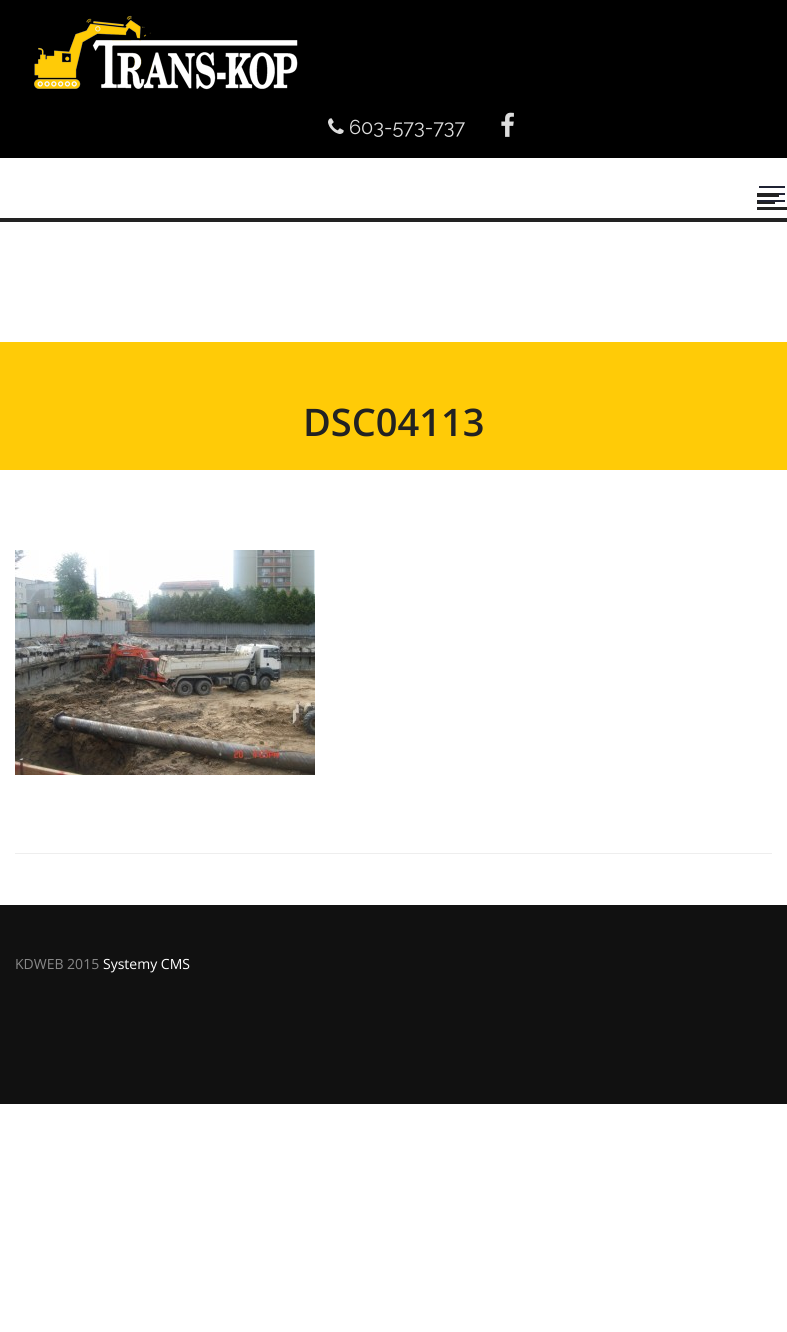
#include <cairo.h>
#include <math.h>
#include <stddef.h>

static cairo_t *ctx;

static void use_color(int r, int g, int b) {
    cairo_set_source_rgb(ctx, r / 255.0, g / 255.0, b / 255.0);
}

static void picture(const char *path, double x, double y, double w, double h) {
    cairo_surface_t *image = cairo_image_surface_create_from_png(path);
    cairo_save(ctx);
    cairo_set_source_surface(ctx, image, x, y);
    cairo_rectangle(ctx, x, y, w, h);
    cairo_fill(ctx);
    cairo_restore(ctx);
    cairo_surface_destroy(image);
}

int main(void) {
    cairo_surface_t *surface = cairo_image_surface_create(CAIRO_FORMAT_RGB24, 787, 1332);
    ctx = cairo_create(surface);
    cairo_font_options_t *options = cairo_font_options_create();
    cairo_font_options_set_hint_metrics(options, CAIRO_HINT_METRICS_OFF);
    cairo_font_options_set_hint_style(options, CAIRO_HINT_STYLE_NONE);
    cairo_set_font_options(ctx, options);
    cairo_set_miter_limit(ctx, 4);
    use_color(255, 255, 255);
    cairo_paint(ctx);
    use_color(0, 0, 0);
    cairo_rectangle(ctx, 0, 0, 787, 158);
    cairo_fill(ctx);
    picture("img1.png", 34, 15, 264, 75);
    picture("img2.png", 328, 118, 16, 16);
    cairo_select_font_face(ctx, "Raleway", CAIRO_FONT_SLANT_NORMAL, CAIRO_FONT_WEIGHT_NORMAL);
    cairo_set_font_size(ctx, 20);
    use_color(221, 221, 221);
    cairo_move_to(ctx, 349, 134);
    cairo_show_text(ctx, "603-573-737");
    picture("img3.png", 501, 112, 13, 25);
    use_color(34, 34, 34);
    cairo_rectangle(ctx, 0, 218, 787, 4);
    cairo_fill(ctx);
    use_color(31, 34, 51);
    cairo_rectangle(ctx, 759, 186, 26, 2);
    cairo_fill(ctx);
    cairo_rectangle(ctx, 779, 193, 6, 2);
    cairo_fill(ctx);
    use_color(34, 34, 34);
    cairo_rectangle(ctx, 757, 207, 30, 3);
    cairo_fill(ctx);
    cairo_rectangle(ctx, 757, 200, 18, 4);
    cairo_fill(ctx);
    cairo_rectangle(ctx, 757, 193, 22, 4);
    cairo_fill(ctx);
    use_color(31, 34, 51);
    cairo_rectangle(ctx, 759, 200, 26, 2);
    cairo_fill(ctx);
    use_color(255, 203, 7);
    cairo_rectangle(ctx, 0, 342, 787, 128);
    cairo_fill(ctx);
    cairo_select_font_face(ctx, "Open Sans SemiBold", CAIRO_FONT_SLANT_NORMAL, CAIRO_FONT_WEIGHT_NORMAL);
    cairo_set_font_size(ctx, 38);
    use_color(34, 34, 34);
    cairo_move_to(ctx, 303, 436);
    cairo_show_text(ctx, "DSC04113");
    use_color(238, 238, 238);
    cairo_rectangle(ctx, 15, 853, 757, 1);
    cairo_fill(ctx);
    picture("img4.png", 15, 550, 300, 225);
    use_color(17, 17, 17);
    cairo_rectangle(ctx, 0, 905, 787, 199);
    cairo_fill(ctx);
    cairo_select_font_face(ctx, "Open Sans", CAIRO_FONT_SLANT_NORMAL, CAIRO_FONT_WEIGHT_NORMAL);
    cairo_set_font_size(ctx, 14);
    use_color(136, 136, 136);
    cairo_move_to(ctx, 15, 969);
    cairo_show_text(ctx, "KDWEB 2015");
    use_color(255, 255, 255);
    cairo_move_to(ctx, 103, 969);
    cairo_show_text(ctx, "Systemy CMS");
    cairo_surface_write_to_png(surface, "result.png");
    cairo_font_options_destroy(options);
    cairo_destroy(ctx);
    cairo_surface_destroy(surface);
    return 0;
}
